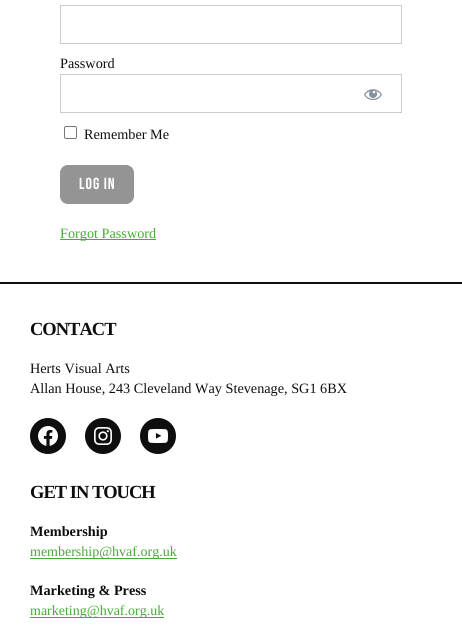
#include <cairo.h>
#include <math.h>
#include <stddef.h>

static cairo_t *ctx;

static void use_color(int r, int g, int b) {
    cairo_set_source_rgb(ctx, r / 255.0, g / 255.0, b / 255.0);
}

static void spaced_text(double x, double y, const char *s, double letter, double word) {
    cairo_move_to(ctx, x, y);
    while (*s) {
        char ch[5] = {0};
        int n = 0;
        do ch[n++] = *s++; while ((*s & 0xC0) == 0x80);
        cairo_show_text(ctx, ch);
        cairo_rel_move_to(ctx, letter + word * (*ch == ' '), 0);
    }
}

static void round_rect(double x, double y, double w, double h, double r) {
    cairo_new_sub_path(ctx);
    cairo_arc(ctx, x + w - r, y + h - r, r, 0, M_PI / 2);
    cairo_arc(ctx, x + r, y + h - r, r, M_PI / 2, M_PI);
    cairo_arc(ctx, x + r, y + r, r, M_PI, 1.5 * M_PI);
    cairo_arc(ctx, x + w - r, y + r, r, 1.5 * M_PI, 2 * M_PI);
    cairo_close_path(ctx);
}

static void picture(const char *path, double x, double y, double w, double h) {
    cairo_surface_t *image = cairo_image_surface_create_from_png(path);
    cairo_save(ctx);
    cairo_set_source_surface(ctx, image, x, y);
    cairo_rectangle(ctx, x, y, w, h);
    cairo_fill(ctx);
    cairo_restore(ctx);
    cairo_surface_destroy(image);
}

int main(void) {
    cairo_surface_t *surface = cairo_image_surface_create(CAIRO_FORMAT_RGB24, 462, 642);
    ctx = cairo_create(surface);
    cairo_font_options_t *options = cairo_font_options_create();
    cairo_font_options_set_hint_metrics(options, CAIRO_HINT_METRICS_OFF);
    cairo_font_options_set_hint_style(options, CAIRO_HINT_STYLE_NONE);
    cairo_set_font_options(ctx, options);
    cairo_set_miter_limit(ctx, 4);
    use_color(255, 255, 255);
    cairo_paint(ctx);
    cairo_rectangle(ctx, 60.5, 5.5, 341, 38);
    use_color(204, 204, 204);
    cairo_set_line_width(ctx, 1);
    cairo_stroke(ctx);
    cairo_select_font_face(ctx, "Liberation Serif", CAIRO_FONT_SLANT_NORMAL, CAIRO_FONT_WEIGHT_NORMAL);
    cairo_set_font_size(ctx, 14.25);
    use_color(14, 14, 14);
    cairo_move_to(ctx, 60, 68);
    cairo_show_text(ctx, "Password");
    cairo_rectangle(ctx, 60.5, 74.5, 341, 38);
    use_color(204, 204, 204);
    cairo_stroke(ctx);
    picture("img1.png", 364, 89, 18, 12);
    round_rect(64.5, 126.5, 12, 12, 1.5);
    use_color(118, 118, 118);
    cairo_stroke(ctx);
    use_color(14, 14, 14);
    cairo_move_to(ctx, 84, 139);
    cairo_show_text(ctx, "Remember Me");
    use_color(148, 148, 148);
    round_rect(60.5, 165.5, 73, 38, 7.5);
    cairo_fill_preserve(ctx);
    cairo_stroke(ctx);
    cairo_select_font_face(ctx, "Bebas Neue", CAIRO_FONT_SLANT_NORMAL, CAIRO_FONT_WEIGHT_NORMAL);
    cairo_set_font_size(ctx, 16);
    use_color(255, 255, 255);
    spaced_text(79, 189, "Log In", 1, 0);
    use_color(69, 172, 52);
    cairo_rectangle(ctx, 60, 239, 96, 1);
    cairo_fill(ctx);
    cairo_select_font_face(ctx, "Liberation Serif", CAIRO_FONT_SLANT_NORMAL, CAIRO_FONT_WEIGHT_NORMAL);
    cairo_set_font_size(ctx, 14.25);
    cairo_move_to(ctx, 60, 238);
    cairo_show_text(ctx, "Forgot Password");
    use_color(14, 14, 14);
    cairo_rectangle(ctx, 0, 282, 462, 2);
    cairo_fill(ctx);
    cairo_select_font_face(ctx, "Liberation Serif", CAIRO_FONT_SLANT_NORMAL, CAIRO_FONT_WEIGHT_BOLD);
    cairo_set_font_size(ctx, 18.5);
    spaced_text(30, 335, "CONTACT", -1, 0);
    cairo_select_font_face(ctx, "Liberation Serif", CAIRO_FONT_SLANT_NORMAL, CAIRO_FONT_WEIGHT_NORMAL);
    cairo_set_font_size(ctx, 14.25);
    cairo_move_to(ctx, 30, 373);
    cairo_show_text(ctx, "Herts Visual Arts");
    cairo_move_to(ctx, 30, 393);
    cairo_show_text(ctx, "Allan House, 243 Cleveland Way Stevenage, SG1 6BX");
    cairo_new_path(ctx);
    cairo_arc(ctx, 48, 436, 18, 0, 2 * M_PI);
    cairo_fill(ctx);
    picture("img2.png", 38, 426, 20, 20);
    cairo_arc(ctx, 103, 436, 18, 0, 2 * M_PI);
    cairo_fill(ctx);
    picture("img3.png", 94, 427, 18, 18);
    cairo_arc(ctx, 158, 436, 18, 0, 2 * M_PI);
    cairo_fill(ctx);
    picture("img4.png", 148, 429, 20, 14);
    cairo_select_font_face(ctx, "Liberation Serif", CAIRO_FONT_SLANT_NORMAL, CAIRO_FONT_WEIGHT_BOLD);
    cairo_set_font_size(ctx, 18.5);
    spaced_text(30, 498, "GET IN TOUCH", -1, 0);
    cairo_set_font_size(ctx, 14.25);
    cairo_move_to(ctx, 30, 536);
    cairo_show_text(ctx, "Membership");
    use_color(69, 172, 52);
    cairo_rectangle(ctx, 30, 558, 147, 1);
    cairo_fill(ctx);
    cairo_select_font_face(ctx, "Liberation Serif", CAIRO_FONT_SLANT_NORMAL, CAIRO_FONT_WEIGHT_NORMAL);
    cairo_set_font_size(ctx, 14);
    cairo_move_to(ctx, 30, 556);
    cairo_show_text(ctx, "membership@hvaf.org.uk");
    cairo_select_font_face(ctx, "Liberation Serif", CAIRO_FONT_SLANT_NORMAL, CAIRO_FONT_WEIGHT_BOLD);
    cairo_set_font_size(ctx, 14.25);
    use_color(14, 14, 14);
    cairo_move_to(ctx, 30, 595);
    cairo_show_text(ctx, "Marketing & Press");
    use_color(69, 172, 52);
    cairo_rectangle(ctx, 30, 617, 134, 1);
    cairo_fill(ctx);
    cairo_select_font_face(ctx, "Liberation Serif", CAIRO_FONT_SLANT_NORMAL, CAIRO_FONT_WEIGHT_NORMAL);
    cairo_set_font_size(ctx, 14);
    cairo_move_to(ctx, 30, 615);
    cairo_show_text(ctx, "marketing@hvaf.org.uk");
    cairo_surface_write_to_png(surface, "result.png");
    cairo_font_options_destroy(options);
    cairo_destroy(ctx);
    cairo_surface_destroy(surface);
    return 0;
}
